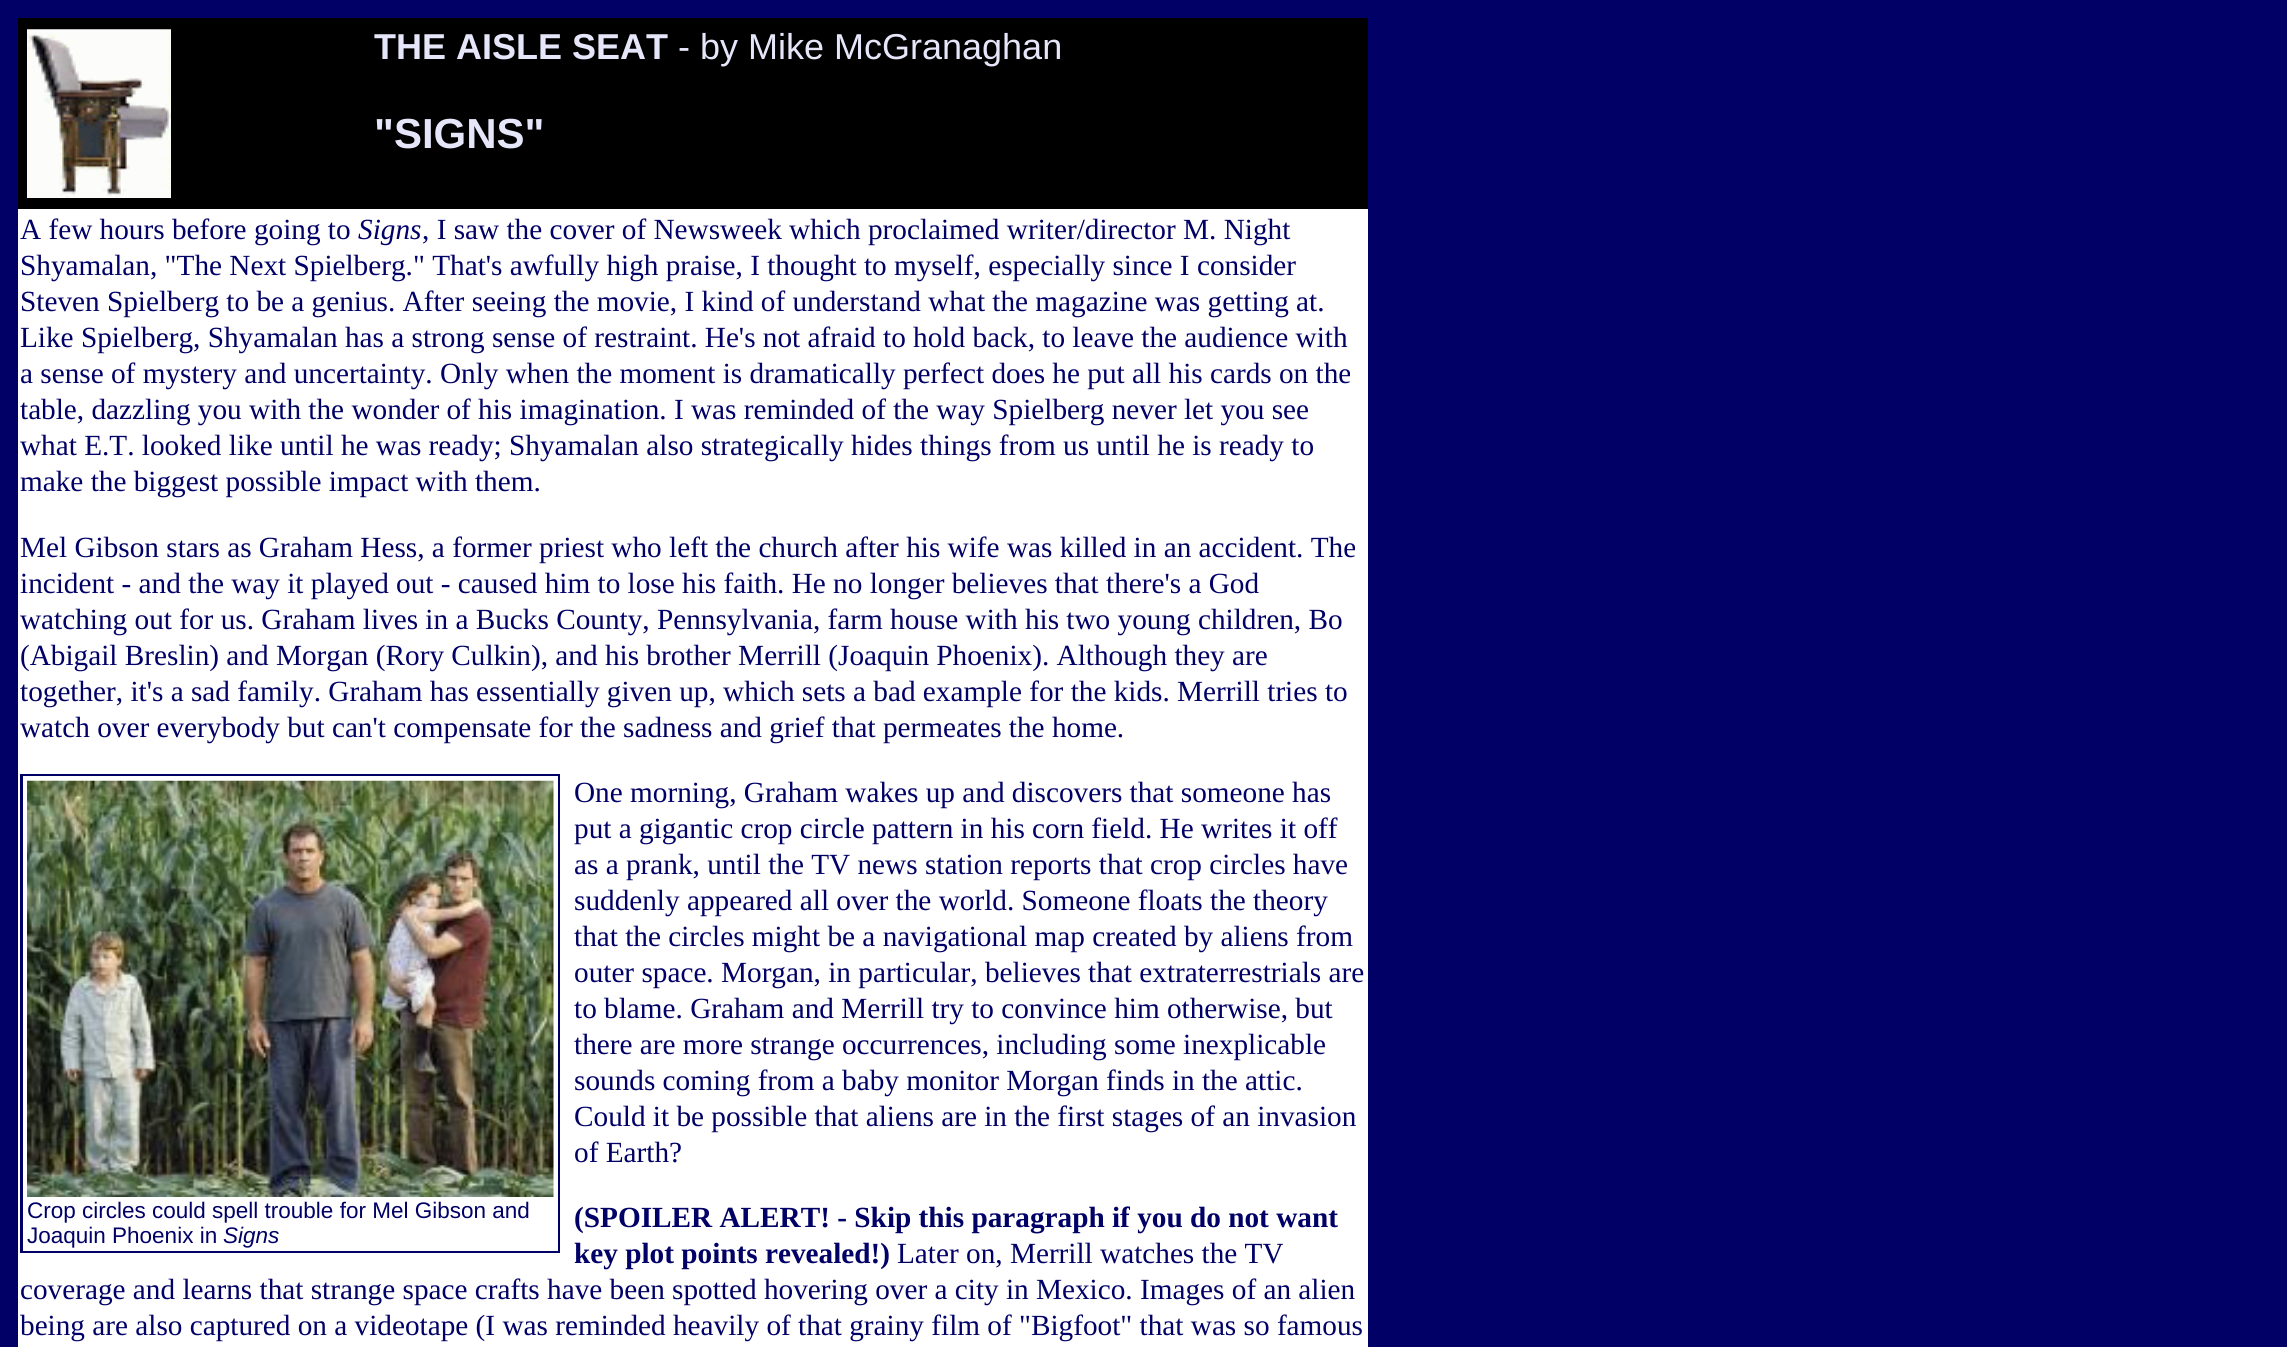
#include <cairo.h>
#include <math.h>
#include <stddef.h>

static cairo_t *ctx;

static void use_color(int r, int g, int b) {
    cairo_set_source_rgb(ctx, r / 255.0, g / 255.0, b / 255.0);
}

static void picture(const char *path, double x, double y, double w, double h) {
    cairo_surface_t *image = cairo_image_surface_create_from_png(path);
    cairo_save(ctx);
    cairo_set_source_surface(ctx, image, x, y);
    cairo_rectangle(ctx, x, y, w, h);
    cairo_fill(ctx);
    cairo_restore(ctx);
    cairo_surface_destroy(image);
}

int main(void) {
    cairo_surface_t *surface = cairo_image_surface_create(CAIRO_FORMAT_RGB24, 2287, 1347);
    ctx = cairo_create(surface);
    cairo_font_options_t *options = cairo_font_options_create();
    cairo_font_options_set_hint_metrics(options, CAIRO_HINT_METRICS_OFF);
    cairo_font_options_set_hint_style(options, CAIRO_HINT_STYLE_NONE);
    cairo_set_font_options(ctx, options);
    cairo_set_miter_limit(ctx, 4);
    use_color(0, 0, 102);
    cairo_paint(ctx);
    use_color(0, 0, 0);
    cairo_rectangle(ctx, 18, 18, 1350, 191);
    cairo_fill(ctx);
    picture("img1.png", 27, 29, 144, 169);
    cairo_select_font_face(ctx, "Liberation Sans", CAIRO_FONT_SLANT_NORMAL, CAIRO_FONT_WEIGHT_BOLD);
    cairo_set_font_size(ctx, 36);
    use_color(230, 230, 250);
    cairo_move_to(ctx, 374, 59);
    cairo_show_text(ctx, "THE AISLE SEAT");
    cairo_select_font_face(ctx, "Liberation Sans", CAIRO_FONT_SLANT_NORMAL, CAIRO_FONT_WEIGHT_NORMAL);
    cairo_move_to(ctx, 678, 59);
    cairo_show_text(ctx, "- by Mike McGranaghan");
    cairo_select_font_face(ctx, "Liberation Sans", CAIRO_FONT_SLANT_NORMAL, CAIRO_FONT_WEIGHT_BOLD);
    cairo_set_font_size(ctx, 42);
    cairo_move_to(ctx, 374, 148);
    cairo_show_text(ctx, "\"SIGNS\"");
    use_color(255, 255, 255);
    cairo_rectangle(ctx, 18, 209, 1350, 1138);
    cairo_fill(ctx);
    cairo_select_font_face(ctx, "Liberation Serif", CAIRO_FONT_SLANT_NORMAL, CAIRO_FONT_WEIGHT_NORMAL);
    cairo_set_font_size(ctx, 29.25);
    use_color(0, 0, 102);
    cairo_move_to(ctx, 20, 239);
    cairo_show_text(ctx, "A few hours before going to");
    cairo_select_font_face(ctx, "Liberation Serif", CAIRO_FONT_SLANT_ITALIC, CAIRO_FONT_WEIGHT_NORMAL);
    cairo_move_to(ctx, 358, 239);
    cairo_show_text(ctx, "Signs");
    cairo_select_font_face(ctx, "Liberation Serif", CAIRO_FONT_SLANT_NORMAL, CAIRO_FONT_WEIGHT_NORMAL);
    cairo_move_to(ctx, 422, 239);
    cairo_show_text(ctx, ", I saw the cover of Newsweek which proclaimed writer/director M. Night");
    cairo_move_to(ctx, 20, 275);
    cairo_show_text(ctx, "Shyamalan, \"The Next Spielberg.\" That's awfully high praise, I thought to myself, especially since I consider");
    cairo_move_to(ctx, 20, 311);
    cairo_show_text(ctx, "Steven Spielberg to be a genius. After seeing the movie, I kind of understand what the magazine was getting at.");
    cairo_move_to(ctx, 20, 347);
    cairo_show_text(ctx, "Like Spielberg, Shyamalan has a strong sense of restraint. He's not afraid to hold back, to leave the audience with");
    cairo_move_to(ctx, 20, 383);
    cairo_show_text(ctx, "a sense of mystery and uncertainty. Only when the moment is dramatically perfect does he put all his cards on the");
    cairo_move_to(ctx, 20, 419);
    cairo_show_text(ctx, "table, dazzling you with the wonder of his imagination. I was reminded of the way Spielberg never let you see");
    cairo_move_to(ctx, 20, 455);
    cairo_show_text(ctx, "what E.T. looked like until he was ready; Shyamalan also strategically hides things from us until he is ready to");
    cairo_move_to(ctx, 20, 491);
    cairo_show_text(ctx, "make the biggest possible impact with them.");
    cairo_move_to(ctx, 20, 557);
    cairo_show_text(ctx, "Mel Gibson stars as Graham Hess, a former priest who left the church after his wife was killed in an accident. The");
    cairo_move_to(ctx, 20, 593);
    cairo_show_text(ctx, "incident - and the way it played out - caused him to lose his faith. He no longer believes that there's a God");
    cairo_move_to(ctx, 20, 629);
    cairo_show_text(ctx, "watching out for us. Graham lives in a Bucks County, Pennsylvania, farm house with his two young children, Bo");
    cairo_move_to(ctx, 20, 665);
    cairo_show_text(ctx, "(Abigail Breslin) and Morgan (Rory Culkin), and his brother Merrill (Joaquin Phoenix). Although they are");
    cairo_move_to(ctx, 20, 701);
    cairo_show_text(ctx, "together, it's a sad family. Graham has essentially given up, which sets a bad example for the kids. Merrill tries to");
    cairo_move_to(ctx, 20, 737);
    cairo_show_text(ctx, "watch over everybody but can't compensate for the sadness and grief that permeates the home.");
    cairo_move_to(ctx, 574, 802);
    cairo_show_text(ctx, "One morning, Graham wakes up and discovers that someone has");
    cairo_move_to(ctx, 574, 838);
    cairo_show_text(ctx, "put a gigantic crop circle pattern in his corn field. He writes it off");
    cairo_move_to(ctx, 574, 874);
    cairo_show_text(ctx, "as a prank, until the TV news station reports that crop circles have");
    cairo_move_to(ctx, 574, 910);
    cairo_show_text(ctx, "suddenly appeared all over the world. Someone floats the theory");
    cairo_move_to(ctx, 574, 946);
    cairo_show_text(ctx, "that the circles might be a navigational map created by aliens from");
    cairo_move_to(ctx, 574, 982);
    cairo_show_text(ctx, "outer space. Morgan, in particular, believes that extraterrestrials are");
    cairo_move_to(ctx, 574, 1018);
    cairo_show_text(ctx, "to blame. Graham and Merrill try to convince him otherwise, but");
    cairo_move_to(ctx, 574, 1054);
    cairo_show_text(ctx, "there are more strange occurrences, including some inexplicable");
    cairo_move_to(ctx, 574, 1090);
    cairo_show_text(ctx, "sounds coming from a baby monitor Morgan finds in the attic.");
    cairo_move_to(ctx, 574, 1126);
    cairo_show_text(ctx, "Could it be possible that aliens are in the first stages of an invasion");
    cairo_move_to(ctx, 574, 1162);
    cairo_show_text(ctx, "of Earth?");
    cairo_rectangle(ctx, 20, 774, 540, 479);
    cairo_fill(ctx);
    use_color(255, 255, 255);
    cairo_rectangle(ctx, 23, 776, 535, 475);
    cairo_fill(ctx);
    picture("img2.png", 27, 780, 527, 417);
    cairo_select_font_face(ctx, "Liberation Sans", CAIRO_FONT_SLANT_NORMAL, CAIRO_FONT_WEIGHT_NORMAL);
    cairo_set_font_size(ctx, 22.5);
    use_color(0, 0, 102);
    cairo_move_to(ctx, 27, 1218);
    cairo_show_text(ctx, "Crop circles could spell trouble for Mel Gibson and");
    cairo_move_to(ctx, 27, 1243);
    cairo_show_text(ctx, "Joaquin Phoenix in");
    cairo_select_font_face(ctx, "Liberation Sans", CAIRO_FONT_SLANT_ITALIC, CAIRO_FONT_WEIGHT_NORMAL);
    cairo_move_to(ctx, 223, 1243);
    cairo_show_text(ctx, "Signs");
    cairo_select_font_face(ctx, "Liberation Serif", CAIRO_FONT_SLANT_NORMAL, CAIRO_FONT_WEIGHT_BOLD);
    cairo_set_font_size(ctx, 29.25);
    cairo_move_to(ctx, 574, 1227);
    cairo_show_text(ctx, "(SPOILER ALERT! - Skip this paragraph if you do not want");
    cairo_move_to(ctx, 574, 1263);
    cairo_show_text(ctx, "key plot points revealed!)");
    cairo_select_font_face(ctx, "Liberation Serif", CAIRO_FONT_SLANT_NORMAL, CAIRO_FONT_WEIGHT_NORMAL);
    cairo_move_to(ctx, 897, 1263);
    cairo_show_text(ctx, "Later on, Merrill watches the TV");
    cairo_move_to(ctx, 20, 1299);
    cairo_show_text(ctx, "coverage and learns that strange space crafts have been spotted hovering over a city in Mexico. Images of an alien");
    cairo_move_to(ctx, 20, 1335);
    cairo_show_text(ctx, "being are also captured on a videotape (I was reminded heavily of that grainy film of \"Bigfoot\" that was so famous");
    cairo_surface_write_to_png(surface, "result.png");
    cairo_font_options_destroy(options);
    cairo_destroy(ctx);
    cairo_surface_destroy(surface);
    return 0;
}
